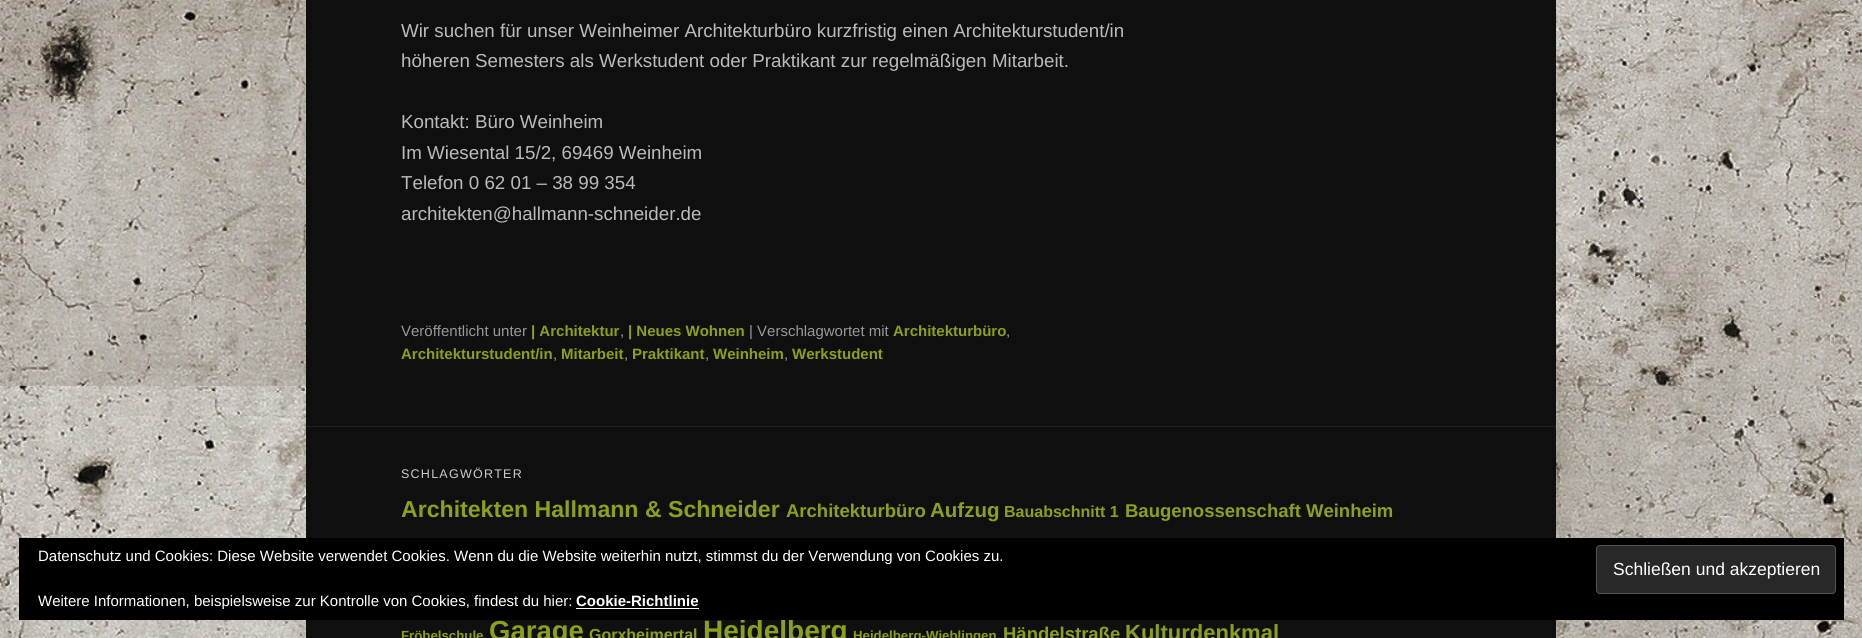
#include <cairo.h>
#include <math.h>
#include <stddef.h>

static cairo_t *ctx;

static void use_color(int r, int g, int b) {
    cairo_set_source_rgb(ctx, r / 255.0, g / 255.0, b / 255.0);
}

static void spaced_text(double x, double y, const char *s, double letter, double word) {
    cairo_move_to(ctx, x, y);
    while (*s) {
        char ch[5] = {0};
        int n = 0;
        do ch[n++] = *s++; while ((*s & 0xC0) == 0x80);
        cairo_show_text(ctx, ch);
        cairo_rel_move_to(ctx, letter + word * (*ch == ' '), 0);
    }
}

static void round_rect(double x, double y, double w, double h, double r) {
    cairo_new_sub_path(ctx);
    cairo_arc(ctx, x + w - r, y + h - r, r, 0, M_PI / 2);
    cairo_arc(ctx, x + r, y + h - r, r, M_PI / 2, M_PI);
    cairo_arc(ctx, x + r, y + r, r, M_PI, 1.5 * M_PI);
    cairo_arc(ctx, x + w - r, y + r, r, 1.5 * M_PI, 2 * M_PI);
    cairo_close_path(ctx);
}

static void picture(const char *path, double x, double y, double w, double h) {
    cairo_surface_t *image = cairo_image_surface_create_from_png(path);
    cairo_save(ctx);
    cairo_set_source_surface(ctx, image, x, y);
    cairo_rectangle(ctx, x, y, w, h);
    cairo_fill(ctx);
    cairo_restore(ctx);
    cairo_surface_destroy(image);
}

int main(void) {
    cairo_surface_t *surface = cairo_image_surface_create(CAIRO_FORMAT_RGB24, 1862, 638);
    ctx = cairo_create(surface);
    cairo_font_options_t *options = cairo_font_options_create();
    cairo_font_options_set_hint_metrics(options, CAIRO_HINT_METRICS_OFF);
    cairo_font_options_set_hint_style(options, CAIRO_HINT_STYLE_NONE);
    cairo_set_font_options(ctx, options);
    cairo_set_miter_limit(ctx, 4);
    use_color(255, 255, 255);
    cairo_paint(ctx);
    picture("img1.png", 0, 0, 1862, 638);
    use_color(15, 15, 15);
    cairo_rectangle(ctx, 306, 0, 1250, 638);
    cairo_fill(ctx);
    cairo_select_font_face(ctx, "Liberation Sans", CAIRO_FONT_SLANT_NORMAL, CAIRO_FONT_WEIGHT_NORMAL);
    cairo_set_font_size(ctx, 18.75);
    use_color(187, 187, 187);
    cairo_move_to(ctx, 401, 37);
    cairo_show_text(ctx, "Wir suchen für unser Weinheimer Architekturbüro kurzfristig einen Architekturstudent/in");
    cairo_move_to(ctx, 401, 67);
    cairo_show_text(ctx, "höheren Semesters als Werkstudent oder Praktikant zur regelmäßigen Mitarbeit.");
    cairo_move_to(ctx, 401, 128);
    cairo_show_text(ctx, "Kontakt: Büro Weinheim");
    cairo_move_to(ctx, 401, 159);
    cairo_show_text(ctx, "Im Wiesental 15/2, 69469 Weinheim");
    cairo_move_to(ctx, 401, 189);
    cairo_show_text(ctx, "Telefon 0 62 01 – 38 99 354");
    cairo_move_to(ctx, 401, 220);
    cairo_show_text(ctx, "architekten@hallmann-schneider.de");
    cairo_set_font_size(ctx, 15);
    use_color(153, 153, 153);
    cairo_move_to(ctx, 401, 336);
    cairo_show_text(ctx, "Veröffentlicht unter");
    cairo_select_font_face(ctx, "Liberation Sans", CAIRO_FONT_SLANT_NORMAL, CAIRO_FONT_WEIGHT_BOLD);
    use_color(140, 161, 23);
    cairo_move_to(ctx, 531, 336);
    cairo_show_text(ctx, "| Architektur");
    cairo_select_font_face(ctx, "Liberation Sans", CAIRO_FONT_SLANT_NORMAL, CAIRO_FONT_WEIGHT_NORMAL);
    use_color(153, 153, 153);
    cairo_move_to(ctx, 620, 336);
    cairo_show_text(ctx, ",");
    cairo_select_font_face(ctx, "Liberation Sans", CAIRO_FONT_SLANT_NORMAL, CAIRO_FONT_WEIGHT_BOLD);
    use_color(140, 161, 23);
    cairo_move_to(ctx, 628, 336);
    cairo_show_text(ctx, "| Neues Wohnen");
    cairo_select_font_face(ctx, "Liberation Sans", CAIRO_FONT_SLANT_NORMAL, CAIRO_FONT_WEIGHT_NORMAL);
    use_color(153, 153, 153);
    cairo_move_to(ctx, 749, 336);
    cairo_show_text(ctx, "| Verschlagwortet mit");
    cairo_select_font_face(ctx, "Liberation Sans", CAIRO_FONT_SLANT_NORMAL, CAIRO_FONT_WEIGHT_BOLD);
    use_color(140, 161, 23);
    cairo_move_to(ctx, 893, 336);
    cairo_show_text(ctx, "Architekturbüro");
    cairo_select_font_face(ctx, "Liberation Sans", CAIRO_FONT_SLANT_NORMAL, CAIRO_FONT_WEIGHT_NORMAL);
    use_color(153, 153, 153);
    cairo_move_to(ctx, 1006, 336);
    cairo_show_text(ctx, ",");
    cairo_select_font_face(ctx, "Liberation Sans", CAIRO_FONT_SLANT_NORMAL, CAIRO_FONT_WEIGHT_BOLD);
    use_color(140, 161, 23);
    cairo_move_to(ctx, 401, 359);
    cairo_show_text(ctx, "Architekturstudent/in");
    cairo_select_font_face(ctx, "Liberation Sans", CAIRO_FONT_SLANT_NORMAL, CAIRO_FONT_WEIGHT_NORMAL);
    use_color(153, 153, 153);
    cairo_move_to(ctx, 553, 359);
    cairo_show_text(ctx, ",");
    cairo_select_font_face(ctx, "Liberation Sans", CAIRO_FONT_SLANT_NORMAL, CAIRO_FONT_WEIGHT_BOLD);
    use_color(140, 161, 23);
    cairo_move_to(ctx, 561, 359);
    cairo_show_text(ctx, "Mitarbeit");
    cairo_select_font_face(ctx, "Liberation Sans", CAIRO_FONT_SLANT_NORMAL, CAIRO_FONT_WEIGHT_NORMAL);
    use_color(153, 153, 153);
    cairo_move_to(ctx, 624, 359);
    cairo_show_text(ctx, ",");
    cairo_select_font_face(ctx, "Liberation Sans", CAIRO_FONT_SLANT_NORMAL, CAIRO_FONT_WEIGHT_BOLD);
    use_color(140, 161, 23);
    cairo_move_to(ctx, 632, 359);
    cairo_show_text(ctx, "Praktikant");
    cairo_select_font_face(ctx, "Liberation Sans", CAIRO_FONT_SLANT_NORMAL, CAIRO_FONT_WEIGHT_NORMAL);
    use_color(153, 153, 153);
    cairo_move_to(ctx, 705, 359);
    cairo_show_text(ctx, ",");
    cairo_select_font_face(ctx, "Liberation Sans", CAIRO_FONT_SLANT_NORMAL, CAIRO_FONT_WEIGHT_BOLD);
    use_color(140, 161, 23);
    cairo_move_to(ctx, 713, 359);
    cairo_show_text(ctx, "Weinheim");
    cairo_select_font_face(ctx, "Liberation Sans", CAIRO_FONT_SLANT_NORMAL, CAIRO_FONT_WEIGHT_NORMAL);
    use_color(153, 153, 153);
    cairo_move_to(ctx, 784, 359);
    cairo_show_text(ctx, ",");
    cairo_select_font_face(ctx, "Liberation Sans", CAIRO_FONT_SLANT_NORMAL, CAIRO_FONT_WEIGHT_BOLD);
    use_color(140, 161, 23);
    cairo_move_to(ctx, 792, 359);
    cairo_show_text(ctx, "Werkstudent");
    use_color(34, 34, 34);
    cairo_rectangle(ctx, 306, 426, 1250, 1);
    cairo_fill(ctx);
    cairo_select_font_face(ctx, "Liberation Sans", CAIRO_FONT_SLANT_NORMAL, CAIRO_FONT_WEIGHT_NORMAL);
    cairo_set_font_size(ctx, 12.5);
    use_color(204, 204, 204);
    spaced_text(401, 478, "SCHLAGWÖRTER", 1.25, 0);
    cairo_select_font_face(ctx, "Liberation Sans", CAIRO_FONT_SLANT_NORMAL, CAIRO_FONT_WEIGHT_BOLD);
    cairo_set_font_size(ctx, 23.1);
    use_color(140, 161, 23);
    cairo_move_to(ctx, 401, 517);
    cairo_show_text(ctx, "Architekten Hallmann & Schneider");
    cairo_set_font_size(ctx, 18.5);
    cairo_move_to(ctx, 786, 517);
    cairo_show_text(ctx, "Architekturbüro");
    cairo_set_font_size(ctx, 20.5);
    cairo_move_to(ctx, 930, 517);
    cairo_show_text(ctx, "Aufzug");
    cairo_set_font_size(ctx, 16);
    cairo_move_to(ctx, 1004, 517);
    cairo_show_text(ctx, "Bauabschnitt 1");
    cairo_set_font_size(ctx, 18.5);
    cairo_move_to(ctx, 1125, 517);
    cairo_show_text(ctx, "Baugenossenschaft Weinheim");
    cairo_set_font_size(ctx, 13.25);
    cairo_move_to(ctx, 401, 640);
    cairo_show_text(ctx, "Fröbelschule");
    cairo_set_font_size(ctx, 27.5);
    cairo_move_to(ctx, 489, 640);
    cairo_show_text(ctx, "Garage");
    cairo_set_font_size(ctx, 16);
    cairo_move_to(ctx, 589, 640);
    cairo_show_text(ctx, "Gorxheimertal");
    cairo_set_font_size(ctx, 28);
    cairo_move_to(ctx, 703, 640);
    cairo_show_text(ctx, "Heidelberg");
    cairo_set_font_size(ctx, 13.25);
    cairo_move_to(ctx, 853, 640);
    cairo_show_text(ctx, "Heidelberg-Wieblingen");
    cairo_set_font_size(ctx, 18.5);
    cairo_move_to(ctx, 1003, 640);
    cairo_show_text(ctx, "Händelstraße");
    cairo_set_font_size(ctx, 22);
    cairo_move_to(ctx, 1125, 640);
    cairo_show_text(ctx, "Kulturdenkmal");
    use_color(0, 0, 0);
    cairo_rectangle(ctx, 19, 538, 1825, 82);
    cairo_fill(ctx);
    cairo_select_font_face(ctx, "Liberation Sans", CAIRO_FONT_SLANT_NORMAL, CAIRO_FONT_WEIGHT_NORMAL);
    cairo_set_font_size(ctx, 15);
    use_color(255, 255, 255);
    cairo_move_to(ctx, 38, 561);
    cairo_show_text(ctx, "Datenschutz und Cookies: Diese Website verwendet Cookies. Wenn du die Website weiterhin nutzt, stimmst du der Verwendung von Cookies zu.");
    use_color(40, 40, 40);
    round_rect(1596.5, 545.5, 239, 48, 3.5);
    cairo_fill_preserve(ctx);
    use_color(83, 83, 83);
    cairo_set_line_width(ctx, 1);
    cairo_stroke(ctx);
    cairo_set_font_size(ctx, 17.5);
    use_color(255, 255, 255);
    cairo_move_to(ctx, 1613, 575);
    cairo_show_text(ctx, "Schließen und akzeptieren");
    cairo_set_font_size(ctx, 15);
    cairo_move_to(ctx, 38, 606);
    cairo_show_text(ctx, "Weitere Informationen, beispielsweise zur Kontrolle von Cookies, findest du hier:");
    cairo_select_font_face(ctx, "Liberation Sans", CAIRO_FONT_SLANT_NORMAL, CAIRO_FONT_WEIGHT_BOLD);
    cairo_move_to(ctx, 576, 606);
    cairo_show_text(ctx, "Cookie-Richtlinie");
    cairo_rectangle(ctx, 576, 608, 123, 1);
    cairo_fill(ctx);
    cairo_surface_write_to_png(surface, "result.png");
    cairo_font_options_destroy(options);
    cairo_destroy(ctx);
    cairo_surface_destroy(surface);
    return 0;
}
